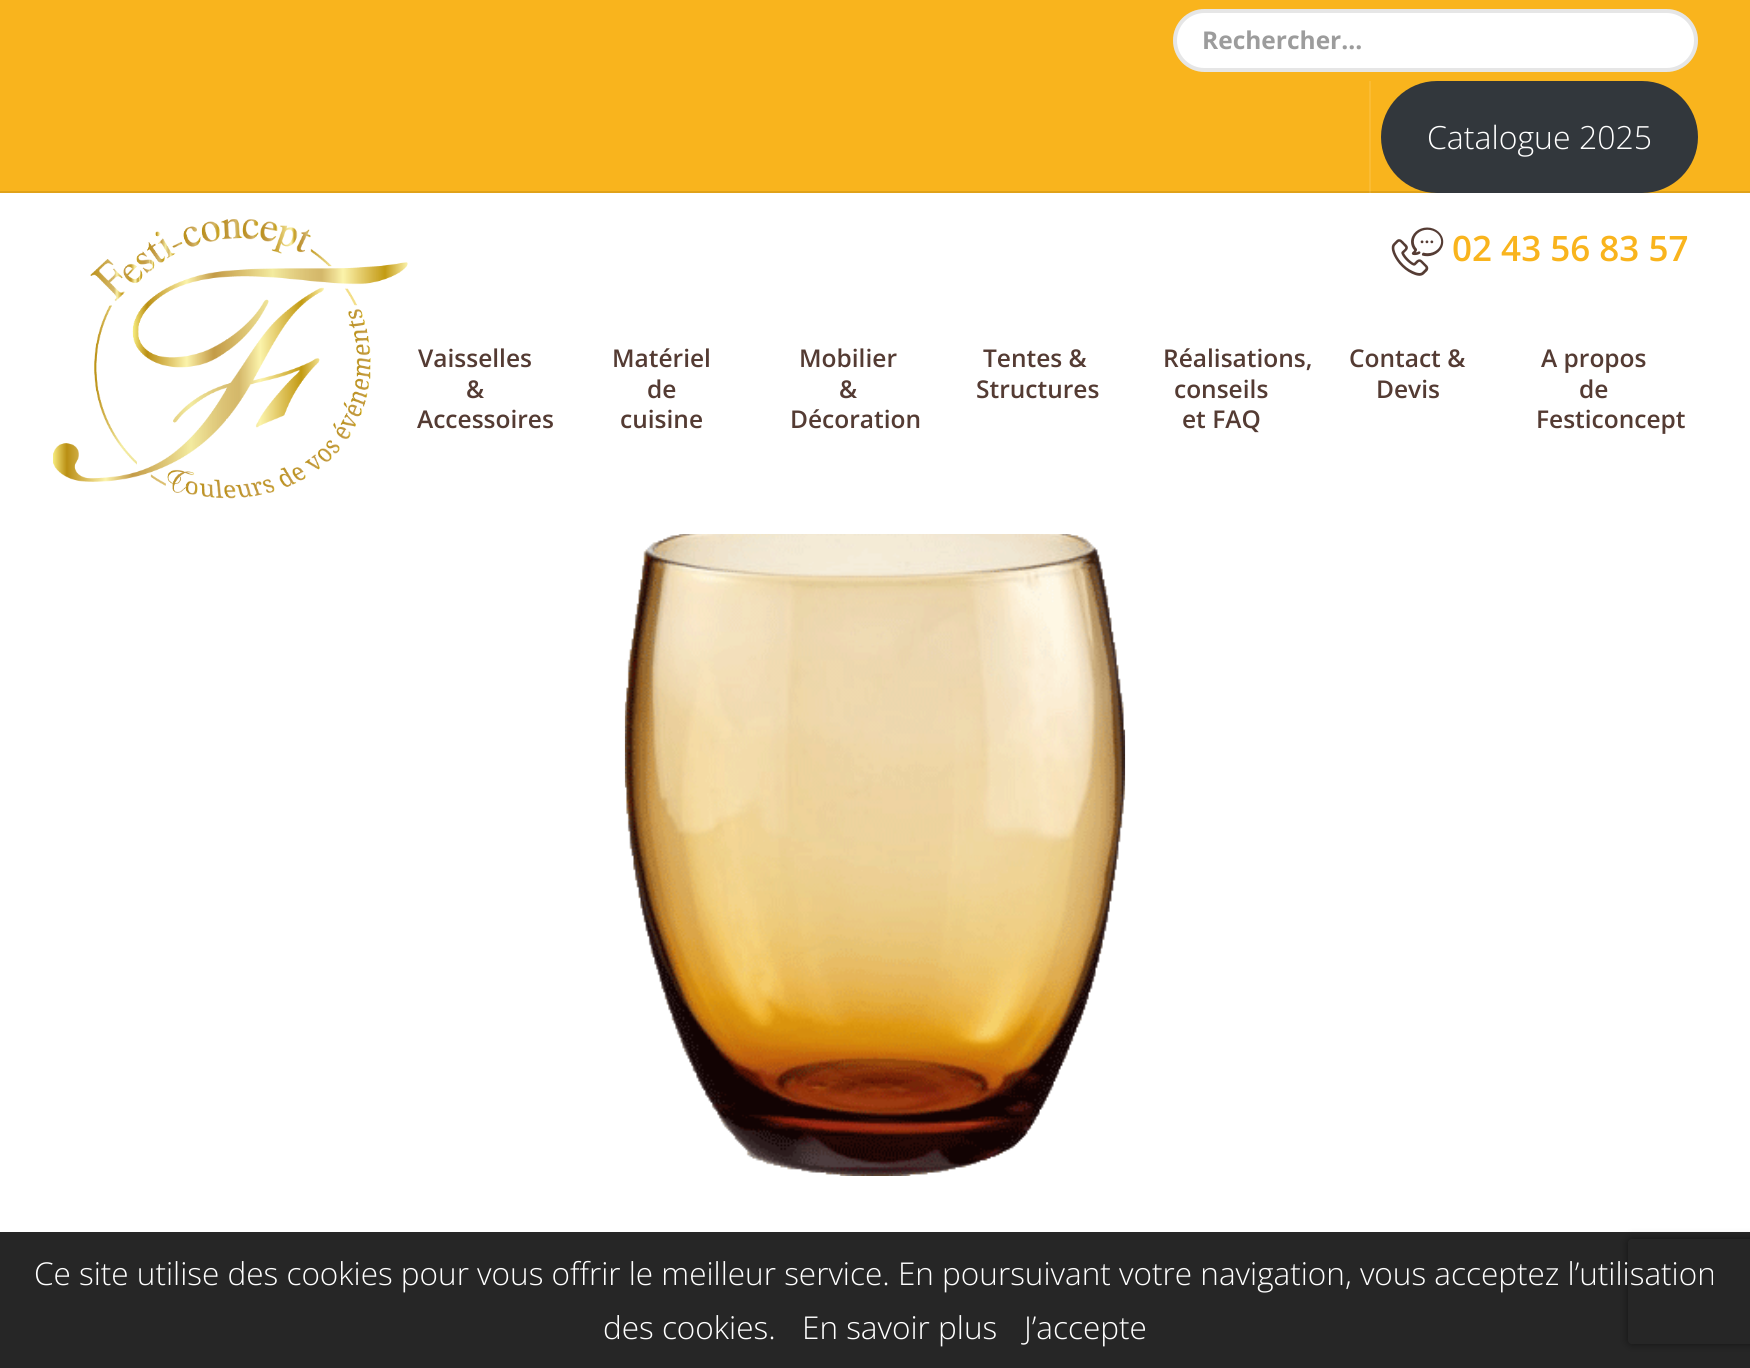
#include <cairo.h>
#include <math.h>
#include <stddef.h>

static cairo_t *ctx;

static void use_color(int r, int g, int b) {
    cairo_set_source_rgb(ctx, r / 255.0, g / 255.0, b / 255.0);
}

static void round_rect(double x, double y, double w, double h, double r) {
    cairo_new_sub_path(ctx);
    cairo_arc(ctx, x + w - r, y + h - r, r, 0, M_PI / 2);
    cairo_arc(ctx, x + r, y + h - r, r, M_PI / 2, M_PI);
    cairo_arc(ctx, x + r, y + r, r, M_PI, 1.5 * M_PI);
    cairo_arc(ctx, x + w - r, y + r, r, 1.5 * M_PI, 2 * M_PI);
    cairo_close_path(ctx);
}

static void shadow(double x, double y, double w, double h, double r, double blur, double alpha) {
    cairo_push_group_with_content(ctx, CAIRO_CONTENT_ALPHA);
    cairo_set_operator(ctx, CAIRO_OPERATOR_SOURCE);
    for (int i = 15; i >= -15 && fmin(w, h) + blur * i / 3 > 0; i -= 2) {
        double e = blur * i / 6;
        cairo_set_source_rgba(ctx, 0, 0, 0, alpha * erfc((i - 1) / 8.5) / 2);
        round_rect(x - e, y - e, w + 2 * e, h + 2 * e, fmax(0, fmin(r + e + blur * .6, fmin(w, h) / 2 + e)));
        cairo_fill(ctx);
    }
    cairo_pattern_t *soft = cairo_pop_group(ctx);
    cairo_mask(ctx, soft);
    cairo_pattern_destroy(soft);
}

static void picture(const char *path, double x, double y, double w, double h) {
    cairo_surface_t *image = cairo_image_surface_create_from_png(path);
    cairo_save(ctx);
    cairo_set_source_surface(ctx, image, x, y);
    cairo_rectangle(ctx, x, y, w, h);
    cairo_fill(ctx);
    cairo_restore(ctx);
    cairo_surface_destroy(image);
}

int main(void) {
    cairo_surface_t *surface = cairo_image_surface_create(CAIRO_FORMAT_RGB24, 1750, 1368);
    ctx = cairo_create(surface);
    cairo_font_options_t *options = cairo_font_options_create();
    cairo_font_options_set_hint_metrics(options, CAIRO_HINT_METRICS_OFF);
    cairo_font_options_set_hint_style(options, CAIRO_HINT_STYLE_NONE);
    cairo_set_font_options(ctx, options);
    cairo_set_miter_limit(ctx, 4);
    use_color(255, 255, 255);
    cairo_paint(ctx);
    use_color(249, 180, 29);
    cairo_rectangle(ctx, 0, 0, 1750, 191);
    cairo_fill(ctx);
    use_color(250, 188, 52);
    cairo_rectangle(ctx, 1369, 81, 2, 112);
    cairo_fill(ctx);
    use_color(224, 162, 26);
    cairo_rectangle(ctx, 0, 191, 1750, 2);
    cairo_fill(ctx);
    use_color(227, 171, 49);
    cairo_rectangle(ctx, 1369, 191, 2, 2);
    cairo_fill(ctx);
    use_color(255, 255, 255);
    round_rect(1173, 9, 525, 63, 31.5);
    cairo_fill(ctx);
    round_rect(1175, 11, 521, 59, 29.5);
    cairo_set_source_rgba(ctx, 0, 0, 0, 0.1);
    cairo_set_line_width(ctx, 4);
    cairo_stroke(ctx);
    cairo_select_font_face(ctx, "Open Sans", CAIRO_FONT_SLANT_NORMAL, CAIRO_FONT_WEIGHT_BOLD);
    cairo_set_font_size(ctx, 24.5);
    use_color(156, 156, 156);
    cairo_move_to(ctx, 1202, 49);
    cairo_show_text(ctx, "Rechercher...");
    use_color(50, 55, 60);
    round_rect(1381, 81, 317, 112, 56);
    cairo_fill(ctx);
    cairo_select_font_face(ctx, "Open Sans Light", CAIRO_FONT_SLANT_NORMAL, CAIRO_FONT_WEIGHT_NORMAL);
    cairo_set_font_size(ctx, 32);
    use_color(255, 255, 255);
    cairo_move_to(ctx, 1427, 149);
    cairo_show_text(ctx, "Catalogue 2025");
    picture("img1.png", 53, 219, 355, 280);
    picture("img2.png", 1391, 227, 53, 49);
    cairo_select_font_face(ctx, "Open Sans SemiBold", CAIRO_FONT_SLANT_NORMAL, CAIRO_FONT_WEIGHT_NORMAL);
    cairo_set_font_size(ctx, 35);
    use_color(249, 180, 29);
    cairo_move_to(ctx, 1452, 261);
    cairo_show_text(ctx, "02 43 56 83 57");
    cairo_set_font_size(ctx, 24.5);
    use_color(84, 59, 51);
    cairo_move_to(ctx, 418, 367);
    cairo_show_text(ctx, "Vaisselles");
    cairo_move_to(ctx, 466, 398);
    cairo_show_text(ctx, "&");
    cairo_move_to(ctx, 417, 428);
    cairo_show_text(ctx, "Accessoires");
    cairo_move_to(ctx, 612, 367);
    cairo_show_text(ctx, "Matériel");
    cairo_move_to(ctx, 647, 398);
    cairo_show_text(ctx, "de");
    cairo_move_to(ctx, 620, 428);
    cairo_show_text(ctx, "cuisine");
    cairo_move_to(ctx, 799, 367);
    cairo_show_text(ctx, "Mobilier");
    cairo_move_to(ctx, 839, 398);
    cairo_show_text(ctx, "&");
    cairo_move_to(ctx, 790, 428);
    cairo_show_text(ctx, "Décoration");
    cairo_move_to(ctx, 983, 367);
    cairo_show_text(ctx, "Tentes &");
    cairo_move_to(ctx, 976, 398);
    cairo_show_text(ctx, "Structures");
    cairo_move_to(ctx, 1163, 367);
    cairo_show_text(ctx, "Réalisations,");
    cairo_move_to(ctx, 1174, 398);
    cairo_show_text(ctx, "conseils");
    cairo_move_to(ctx, 1182, 428);
    cairo_show_text(ctx, "et FAQ");
    cairo_move_to(ctx, 1349, 367);
    cairo_show_text(ctx, "Contact &");
    cairo_move_to(ctx, 1376, 398);
    cairo_show_text(ctx, "Devis");
    cairo_move_to(ctx, 1541, 367);
    cairo_show_text(ctx, "A propos");
    cairo_move_to(ctx, 1579, 398);
    cairo_show_text(ctx, "de");
    cairo_move_to(ctx, 1536, 428);
    cairo_show_text(ctx, "Festiconcept");
    picture("img3.png", 624, 534, 502, 642);
    cairo_save(ctx);
    cairo_set_fill_rule(ctx, CAIRO_FILL_RULE_EVEN_ODD);
    cairo_new_path(ctx);
    cairo_move_to(ctx, 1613, 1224);
    cairo_line_to(ctx, 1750, 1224);
    cairo_line_to(ctx, 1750, 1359);
    cairo_line_to(ctx, 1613, 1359);
    cairo_close_path(ctx);
    cairo_move_to(ctx, 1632, 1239);
    cairo_line_to(ctx, 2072, 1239);
    cairo_curve_to(ctx, 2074, 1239, 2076, 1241, 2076, 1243);
    cairo_line_to(ctx, 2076, 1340);
    cairo_curve_to(ctx, 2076, 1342, 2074, 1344, 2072, 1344);
    cairo_line_to(ctx, 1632, 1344);
    cairo_curve_to(ctx, 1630, 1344, 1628, 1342, 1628, 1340);
    cairo_line_to(ctx, 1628, 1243);
    cairo_curve_to(ctx, 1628, 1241, 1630, 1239, 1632, 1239);
    cairo_close_path(ctx);
    cairo_clip(ctx);
    use_color(128, 128, 128);
    shadow(1628, 1239, 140, 105, 4, 4.5, 1);
    cairo_restore(ctx);
    cairo_set_source_rgba(ctx, 0, 0, 0, 0.85);
    cairo_rectangle(ctx, 0, 1232, 1750, 136);
    cairo_fill(ctx);
    cairo_select_font_face(ctx, "Open Sans Light", CAIRO_FONT_SLANT_NORMAL, CAIRO_FONT_WEIGHT_NORMAL);
    cairo_set_font_size(ctx, 31.5);
    use_color(255, 255, 255);
    cairo_move_to(ctx, 34, 1285);
    cairo_show_text(ctx, "Ce site utilise des cookies pour vous offrir le meilleur service. En poursuivant votre navigation, vous acceptez l’utilisation");
    cairo_move_to(ctx, 603, 1339);
    cairo_show_text(ctx, "des cookies.");
    cairo_move_to(ctx, 802, 1339);
    cairo_show_text(ctx, "En savoir plus");
    cairo_move_to(ctx, 1024, 1339);
    cairo_show_text(ctx, "J’accepte");
    cairo_surface_write_to_png(surface, "result.png");
    cairo_font_options_destroy(options);
    cairo_destroy(ctx);
    cairo_surface_destroy(surface);
    return 0;
}
